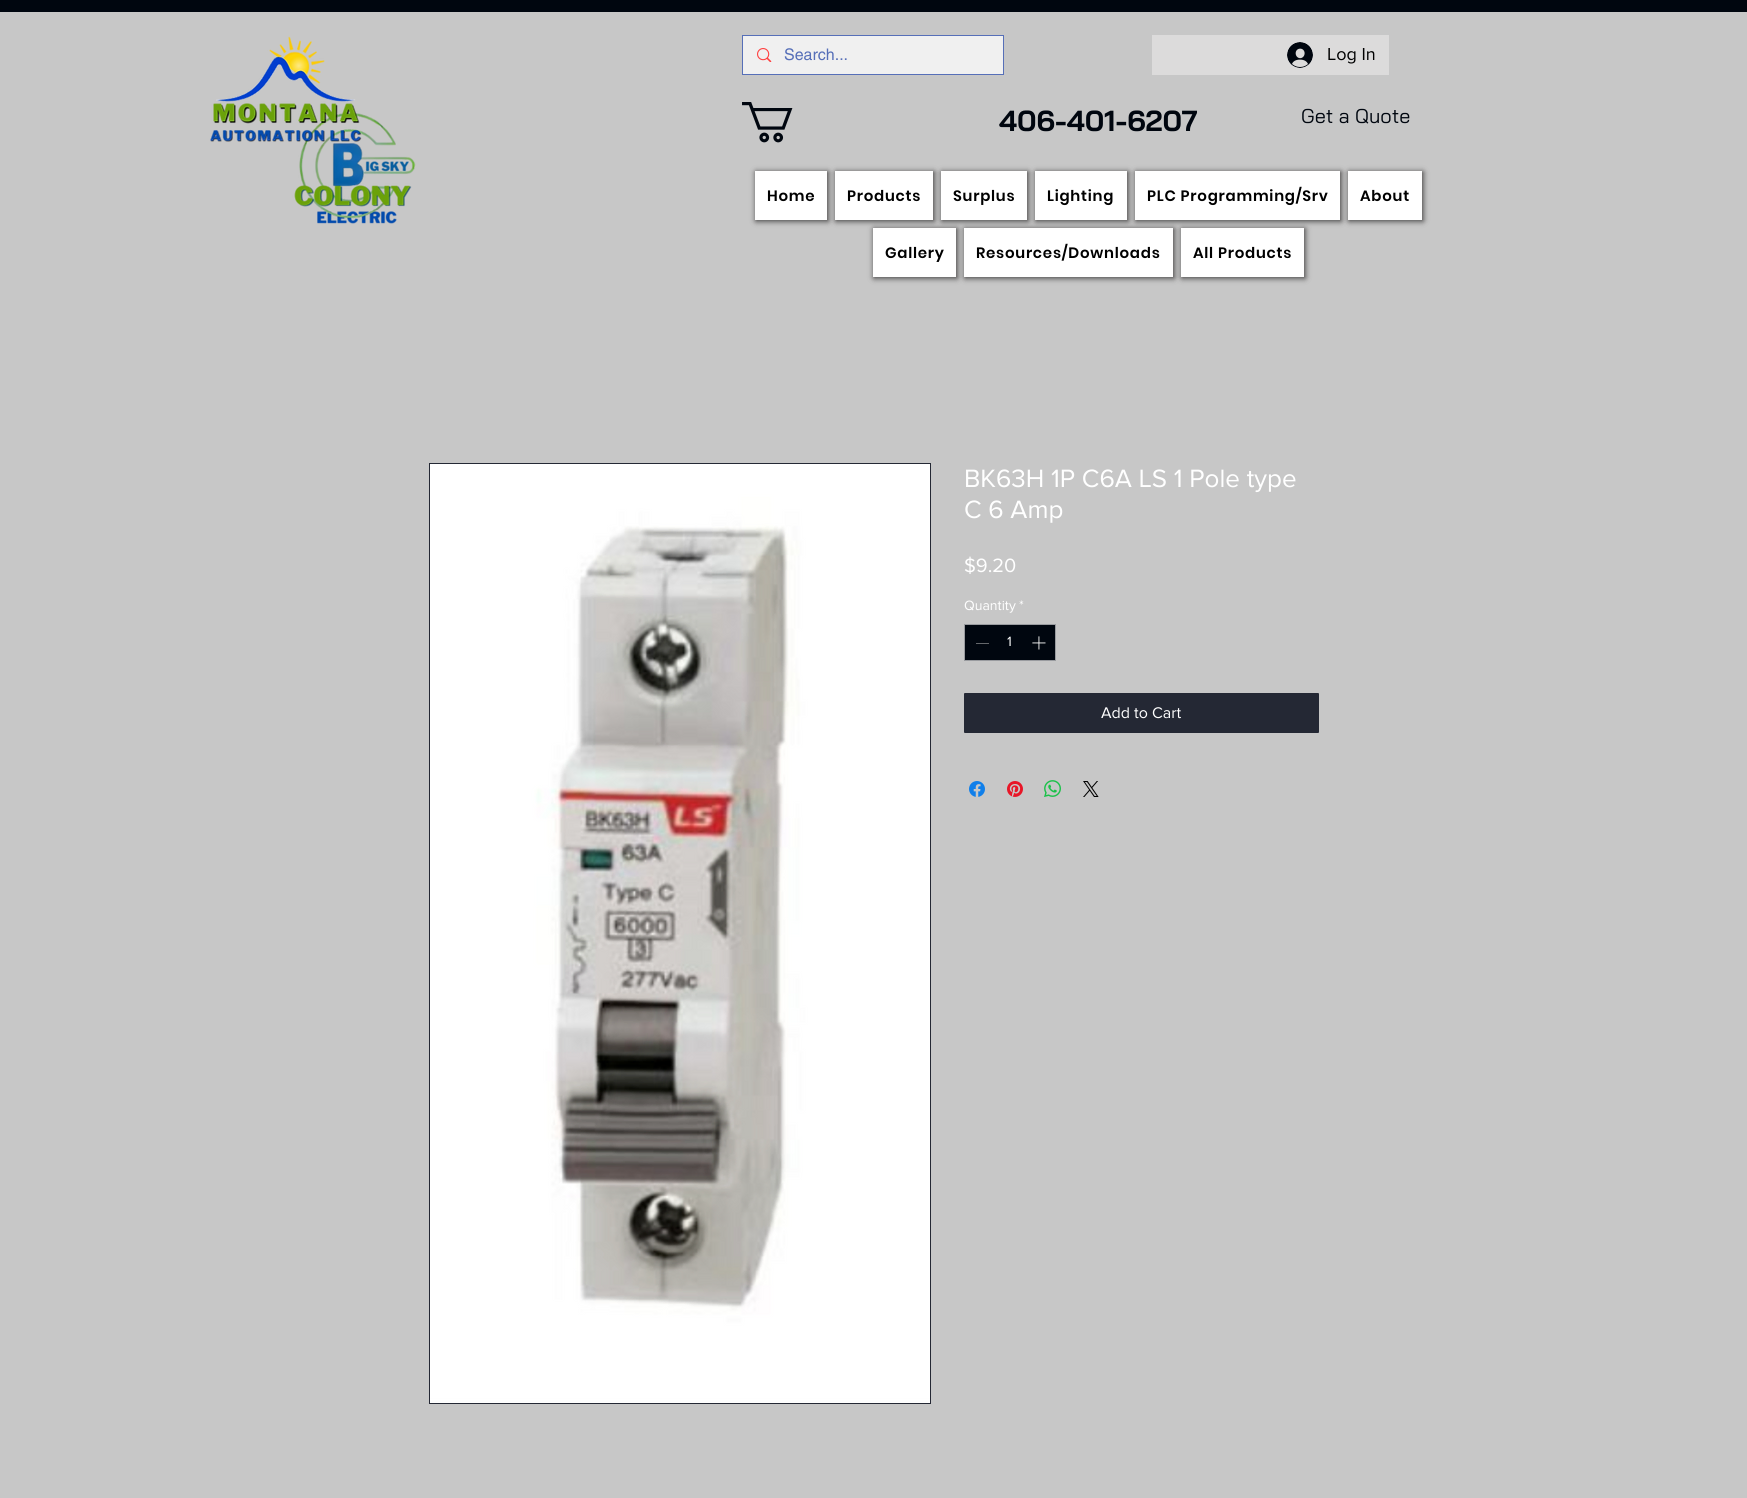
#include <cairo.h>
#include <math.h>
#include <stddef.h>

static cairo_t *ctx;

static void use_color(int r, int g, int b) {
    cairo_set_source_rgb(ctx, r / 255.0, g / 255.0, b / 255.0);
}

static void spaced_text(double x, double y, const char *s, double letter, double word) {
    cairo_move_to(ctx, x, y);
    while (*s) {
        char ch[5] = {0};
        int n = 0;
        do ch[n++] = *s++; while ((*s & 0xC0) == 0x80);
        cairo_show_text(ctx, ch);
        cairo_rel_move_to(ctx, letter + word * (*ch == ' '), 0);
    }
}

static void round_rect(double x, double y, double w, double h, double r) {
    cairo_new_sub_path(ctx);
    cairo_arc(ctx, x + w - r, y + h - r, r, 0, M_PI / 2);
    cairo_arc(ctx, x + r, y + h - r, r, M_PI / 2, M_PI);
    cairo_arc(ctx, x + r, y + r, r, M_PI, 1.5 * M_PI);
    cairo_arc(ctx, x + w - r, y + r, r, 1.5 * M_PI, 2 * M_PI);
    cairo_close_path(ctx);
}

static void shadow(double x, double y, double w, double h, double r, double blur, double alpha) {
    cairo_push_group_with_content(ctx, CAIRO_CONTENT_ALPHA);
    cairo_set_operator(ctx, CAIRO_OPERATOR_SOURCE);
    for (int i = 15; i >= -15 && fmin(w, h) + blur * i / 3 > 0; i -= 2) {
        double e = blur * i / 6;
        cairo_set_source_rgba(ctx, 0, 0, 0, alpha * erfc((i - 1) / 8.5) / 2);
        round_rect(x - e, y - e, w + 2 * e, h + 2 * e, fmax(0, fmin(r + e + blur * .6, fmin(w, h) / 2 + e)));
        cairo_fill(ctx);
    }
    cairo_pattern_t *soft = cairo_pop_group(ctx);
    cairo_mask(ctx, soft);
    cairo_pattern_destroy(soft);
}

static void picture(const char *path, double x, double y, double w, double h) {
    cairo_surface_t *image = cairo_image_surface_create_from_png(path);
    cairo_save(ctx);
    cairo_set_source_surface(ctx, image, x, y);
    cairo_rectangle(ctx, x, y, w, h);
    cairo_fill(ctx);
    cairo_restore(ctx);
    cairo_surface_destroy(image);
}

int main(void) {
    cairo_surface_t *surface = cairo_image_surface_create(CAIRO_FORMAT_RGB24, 1747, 1498);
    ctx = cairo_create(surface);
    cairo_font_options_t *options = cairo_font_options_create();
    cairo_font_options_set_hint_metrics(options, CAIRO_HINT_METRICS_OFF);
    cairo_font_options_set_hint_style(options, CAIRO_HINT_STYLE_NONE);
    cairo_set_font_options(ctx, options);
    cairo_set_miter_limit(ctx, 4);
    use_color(0, 6, 15);
    cairo_paint(ctx);
    use_color(199, 199, 199);
    cairo_rectangle(ctx, 0, 12, 1747, 305);
    cairo_fill(ctx);
    picture("img1.png", 210, 36, 206, 188);
    cairo_rectangle(ctx, 742.5, 35.5, 261, 39);
    use_color(86, 111, 184);
    cairo_set_line_width(ctx, 1);
    cairo_stroke(ctx);
    use_color(240, 240, 240);
    cairo_rectangle(ctx, 743, 36, 260, 38);
    cairo_fill(ctx);
    picture("img2.png", 757, 48, 15, 14);
    cairo_select_font_face(ctx, "helvetica", CAIRO_FONT_SLANT_NORMAL, CAIRO_FONT_WEIGHT_NORMAL);
    cairo_set_font_size(ctx, 16);
    use_color(86, 111, 184);
    cairo_move_to(ctx, 784, 60);
    cairo_show_text(ctx, "Search...");
    use_color(220, 219, 219);
    cairo_rectangle(ctx, 1152, 35, 237, 40);
    cairo_fill(ctx);
    picture("img3.png", 1287, 42, 26, 26);
    cairo_select_font_face(ctx, "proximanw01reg", CAIRO_FONT_SLANT_NORMAL, CAIRO_FONT_WEIGHT_NORMAL);
    cairo_set_font_size(ctx, 18);
    use_color(0, 0, 0);
    cairo_move_to(ctx, 1327, 60);
    cairo_show_text(ctx, "Log In");
    picture("img4.png", 742, 102, 51, 41);
    cairo_select_font_face(ctx, "Bai Jamjuree", CAIRO_FONT_SLANT_NORMAL, CAIRO_FONT_WEIGHT_BOLD);
    cairo_set_font_size(ctx, 29);
    use_color(0, 6, 15);
    cairo_move_to(ctx, 999, 131);
    cairo_show_text(ctx, "406-401-6207");
    cairo_select_font_face(ctx, "Bai Jamjuree", CAIRO_FONT_SLANT_NORMAL, CAIRO_FONT_WEIGHT_NORMAL);
    cairo_set_font_size(ctx, 20);
    cairo_move_to(ctx, 1301, 123);
    cairo_show_text(ctx, "Get a Quote");
    use_color(36, 35, 35);
    shadow(756, 172, 72, 49, 0, 3, 0.88);
    use_color(255, 255, 255);
    cairo_rectangle(ctx, 755, 171, 72, 49);
    cairo_fill(ctx);
    cairo_select_font_face(ctx, "Poppins SemiBold", CAIRO_FONT_SLANT_NORMAL, CAIRO_FONT_WEIGHT_NORMAL);
    cairo_set_font_size(ctx, 15);
    use_color(0, 0, 0);
    spaced_text(767, 201, "Home", 0.75, 0);
    use_color(36, 35, 35);
    shadow(836, 172, 98, 49, 0, 3, 0.88);
    use_color(255, 255, 255);
    cairo_rectangle(ctx, 835, 171, 98, 49);
    cairo_fill(ctx);
    use_color(0, 0, 0);
    spaced_text(847, 201, "Products", 0.75, 0);
    use_color(36, 35, 35);
    shadow(942, 172, 86, 49, 0, 3, 0.88);
    use_color(255, 255, 255);
    cairo_rectangle(ctx, 941, 171, 86, 49);
    cairo_fill(ctx);
    use_color(0, 0, 0);
    spaced_text(953, 201, "Surplus", 0.75, 0);
    use_color(36, 35, 35);
    shadow(1036, 172, 92, 49, 0, 3, 0.88);
    use_color(255, 255, 255);
    cairo_rectangle(ctx, 1035, 171, 92, 49);
    cairo_fill(ctx);
    use_color(0, 0, 0);
    spaced_text(1047, 201, "Lighting", 0.75, 0);
    use_color(36, 35, 35);
    shadow(1136, 172, 205, 49, 0, 3, 0.88);
    use_color(255, 255, 255);
    cairo_rectangle(ctx, 1135, 171, 205, 49);
    cairo_fill(ctx);
    use_color(0, 0, 0);
    spaced_text(1147, 201, "PLC Programming/Srv", 0.75, 0);
    use_color(36, 35, 35);
    shadow(1349, 172, 74, 49, 0, 3, 0.88);
    use_color(255, 255, 255);
    cairo_rectangle(ctx, 1348, 171, 74, 49);
    cairo_fill(ctx);
    use_color(0, 0, 0);
    spaced_text(1360, 201, "About", 0.75, 0);
    use_color(36, 35, 35);
    shadow(874, 229, 83, 49, 0, 3, 0.88);
    use_color(255, 255, 255);
    cairo_rectangle(ctx, 873, 228, 83, 49);
    cairo_fill(ctx);
    use_color(0, 0, 0);
    spaced_text(885, 258, "Gallery", 0.75, 0);
    use_color(36, 35, 35);
    shadow(965, 229, 209, 49, 0, 3, 0.88);
    use_color(255, 255, 255);
    cairo_rectangle(ctx, 964, 228, 209, 49);
    cairo_fill(ctx);
    use_color(0, 0, 0);
    spaced_text(976, 258, "Resources/Downloads", 0.75, 0);
    use_color(36, 35, 35);
    shadow(1182, 229, 123, 49, 0, 3, 0.88);
    use_color(255, 255, 255);
    cairo_rectangle(ctx, 1181, 228, 123, 49);
    cairo_fill(ctx);
    use_color(0, 0, 0);
    spaced_text(1193, 258, "All Products", 0.75, 0);
    use_color(199, 199, 199);
    cairo_rectangle(ctx, 0, 317, 1747, 1181);
    cairo_fill(ctx);
    cairo_rectangle(ctx, 429.5, 463.5, 501, 940);
    use_color(36, 40, 52);
    cairo_stroke(ctx);
    picture("img5.png", 430, 464, 500, 939);
    cairo_select_font_face(ctx, "proximanw01reg", CAIRO_FONT_SLANT_NORMAL, CAIRO_FONT_WEIGHT_NORMAL);
    cairo_set_font_size(ctx, 26);
    use_color(255, 255, 255);
    cairo_move_to(ctx, 964, 487);
    cairo_show_text(ctx, "BK63H 1P C6A LS 1 Pole type");
    cairo_move_to(ctx, 964, 518);
    cairo_show_text(ctx, "C 6 Amp");
    cairo_set_font_size(ctx, 20);
    cairo_move_to(ctx, 964, 572);
    cairo_show_text(ctx, "$9.20");
    cairo_set_font_size(ctx, 14);
    cairo_move_to(ctx, 964, 610);
    cairo_show_text(ctx, "Quantity");
    cairo_move_to(ctx, 1019, 610);
    cairo_show_text(ctx, "*");
    use_color(0, 6, 15);
    cairo_rectangle(ctx, 964.5, 624.5, 91, 36);
    cairo_fill_preserve(ctx);
    use_color(153, 155, 159);
    cairo_stroke(ctx);
    use_color(100, 103, 107);
    cairo_rectangle(ctx, 976, 643, 13, 1);
    cairo_fill(ctx);
    use_color(255, 255, 255);
    cairo_move_to(ctx, 1007, 646);
    cairo_show_text(ctx, "1");
    picture("img6.png", 1032, 636, 14, 14);
    use_color(36, 40, 52);
    round_rect(964, 693, 355, 40, 1);
    cairo_fill(ctx);
    cairo_set_font_size(ctx, 16);
    use_color(255, 255, 255);
    cairo_move_to(ctx, 1101, 718);
    cairo_show_text(ctx, "Add to Cart");
    picture("img7.png", 969, 781, 16, 16);
    picture("img8.png", 1007, 781, 16, 16);
    picture("img9.png", 1044, 780, 17, 17);
    picture("img10.png", 1083, 781, 16, 16);
    cairo_surface_write_to_png(surface, "result.png");
    cairo_font_options_destroy(options);
    cairo_destroy(ctx);
    cairo_surface_destroy(surface);
    return 0;
}
